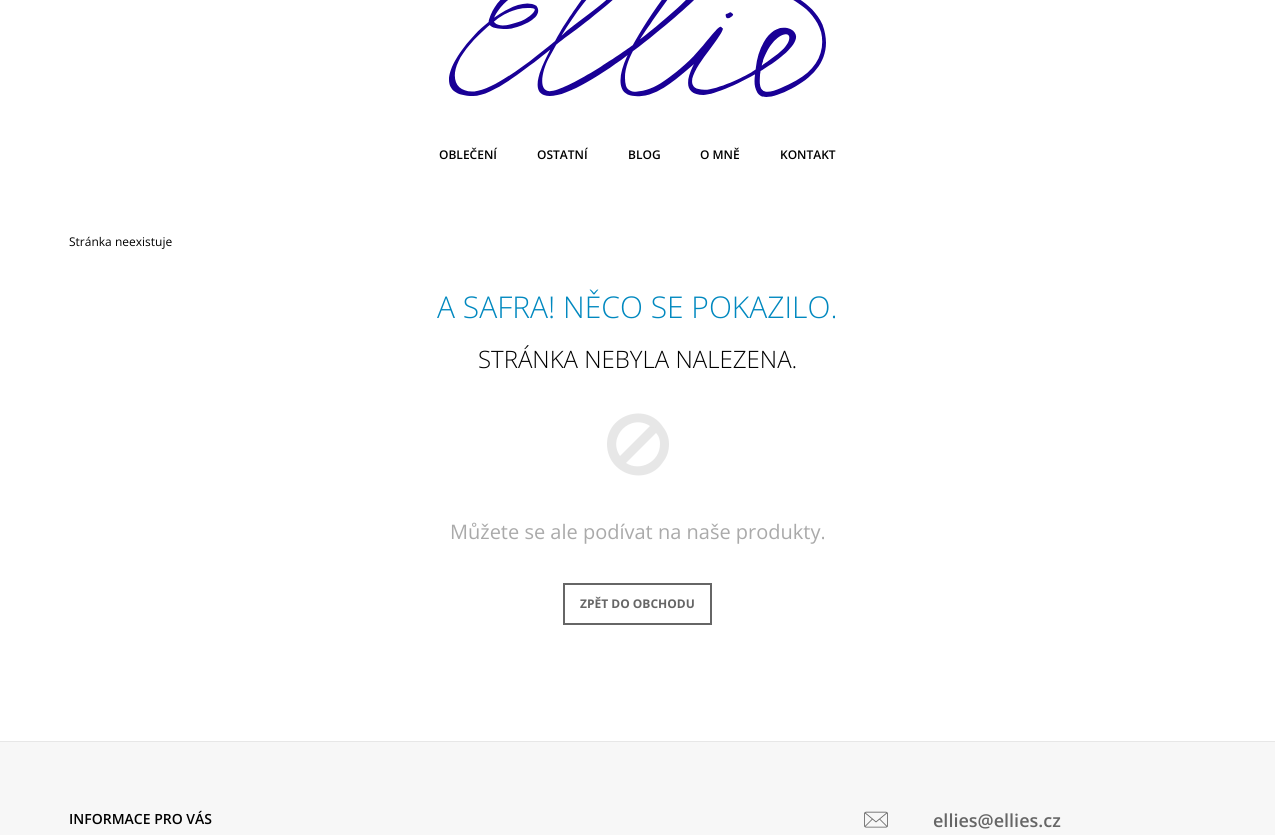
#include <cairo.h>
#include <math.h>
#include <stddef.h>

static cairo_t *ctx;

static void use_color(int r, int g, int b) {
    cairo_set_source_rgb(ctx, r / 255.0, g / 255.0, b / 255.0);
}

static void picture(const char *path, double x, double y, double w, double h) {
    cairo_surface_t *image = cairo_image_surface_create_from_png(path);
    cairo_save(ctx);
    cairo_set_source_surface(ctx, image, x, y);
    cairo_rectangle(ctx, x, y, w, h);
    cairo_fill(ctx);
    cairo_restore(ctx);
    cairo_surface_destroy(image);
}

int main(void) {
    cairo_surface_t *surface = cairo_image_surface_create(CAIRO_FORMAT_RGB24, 1275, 835);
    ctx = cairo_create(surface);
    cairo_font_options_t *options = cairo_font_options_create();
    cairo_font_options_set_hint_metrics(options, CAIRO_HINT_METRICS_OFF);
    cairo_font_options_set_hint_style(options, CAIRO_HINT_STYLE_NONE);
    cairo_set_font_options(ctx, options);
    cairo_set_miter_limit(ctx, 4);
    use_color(255, 255, 255);
    cairo_paint(ctx);
    picture("img1.png", 449, 0, 377, 97);
    cairo_select_font_face(ctx, "Open Sans SemiBold", CAIRO_FONT_SLANT_NORMAL, CAIRO_FONT_WEIGHT_NORMAL);
    cairo_set_font_size(ctx, 12);
    use_color(0, 0, 0);
    cairo_move_to(ctx, 439, 159);
    cairo_show_text(ctx, "OBLEČENÍ");
    cairo_move_to(ctx, 537, 159);
    cairo_show_text(ctx, "OSTATNÍ");
    cairo_move_to(ctx, 628, 159);
    cairo_show_text(ctx, "BLOG");
    cairo_move_to(ctx, 700, 159);
    cairo_show_text(ctx, "O MNĚ");
    cairo_move_to(ctx, 780, 159);
    cairo_show_text(ctx, "KONTAKT");
    cairo_select_font_face(ctx, "Open Sans", CAIRO_FONT_SLANT_NORMAL, CAIRO_FONT_WEIGHT_NORMAL);
    cairo_move_to(ctx, 69, 246);
    cairo_show_text(ctx, "Stránka neexistuje");
    cairo_select_font_face(ctx, "Open Sans Light", CAIRO_FONT_SLANT_NORMAL, CAIRO_FONT_WEIGHT_NORMAL);
    cairo_set_font_size(ctx, 30);
    use_color(0, 136, 191);
    cairo_move_to(ctx, 437, 318);
    cairo_show_text(ctx, "A SAFRA! NĚCO SE POKAZILO.");
    cairo_set_font_size(ctx, 24);
    use_color(0, 0, 0);
    cairo_move_to(ctx, 478, 368);
    cairo_show_text(ctx, "STRÁNKA NEBYLA NALEZENA.");
    use_color(231, 231, 231);
    cairo_new_path(ctx);
    cairo_move_to(ctx, 660, 444);
    cairo_curve_to(ctx, 660, 440, 659, 436, 656, 433);
    cairo_line_to(ctx, 626, 463);
    cairo_curve_to(ctx, 640, 472, 660, 462, 660, 444);
    cairo_close_path(ctx);
    cairo_move_to(ctx, 620, 456);
    cairo_line_to(ctx, 650, 426);
    cairo_curve_to(ctx, 630, 413, 607, 437, 620, 456);
    cairo_close_path(ctx);
    cairo_move_to(ctx, 669, 444);
    cairo_curve_to(ctx, 669, 451, 667, 457, 663, 462);
    cairo_curve_to(ctx, 647, 487, 607, 475, 607, 444);
    cairo_curve_to(ctx, 607, 414, 647, 402, 663, 427);
    cairo_curve_to(ctx, 667, 432, 669, 438, 669, 444);
    cairo_close_path(ctx);
    cairo_fill(ctx);
    cairo_select_font_face(ctx, "Open Sans", CAIRO_FONT_SLANT_NORMAL, CAIRO_FONT_WEIGHT_NORMAL);
    cairo_set_font_size(ctx, 20);
    use_color(170, 170, 170);
    cairo_move_to(ctx, 450, 539);
    cairo_show_text(ctx, "Můžete se ale podívat na naše produkty.");
    cairo_rectangle(ctx, 564, 584, 147, 40);
    use_color(102, 102, 102);
    cairo_stroke(ctx);
    cairo_select_font_face(ctx, "Open Sans", CAIRO_FONT_SLANT_NORMAL, CAIRO_FONT_WEIGHT_BOLD);
    cairo_set_font_size(ctx, 12);
    cairo_move_to(ctx, 580, 608);
    cairo_show_text(ctx, "ZPĚT DO OBCHODU");
    use_color(247, 247, 247);
    cairo_rectangle(ctx, 0, 742, 1275, 93);
    cairo_fill(ctx);
    use_color(231, 231, 231);
    cairo_rectangle(ctx, 0, 741, 1275, 1);
    cairo_fill(ctx);
    cairo_select_font_face(ctx, "Open Sans SemiBold", CAIRO_FONT_SLANT_NORMAL, CAIRO_FONT_WEIGHT_NORMAL);
    cairo_set_font_size(ctx, 14);
    use_color(0, 0, 0);
    cairo_move_to(ctx, 69, 824);
    cairo_show_text(ctx, "INFORMACE PRO VÁS");
    picture("img2.png", 864, 811, 24, 17);
    cairo_set_font_size(ctx, 18);
    use_color(102, 102, 102);
    cairo_move_to(ctx, 933, 827);
    cairo_show_text(ctx, "ellies@ellies.cz");
    cairo_surface_write_to_png(surface, "result.png");
    cairo_font_options_destroy(options);
    cairo_destroy(ctx);
    cairo_surface_destroy(surface);
    return 0;
}
